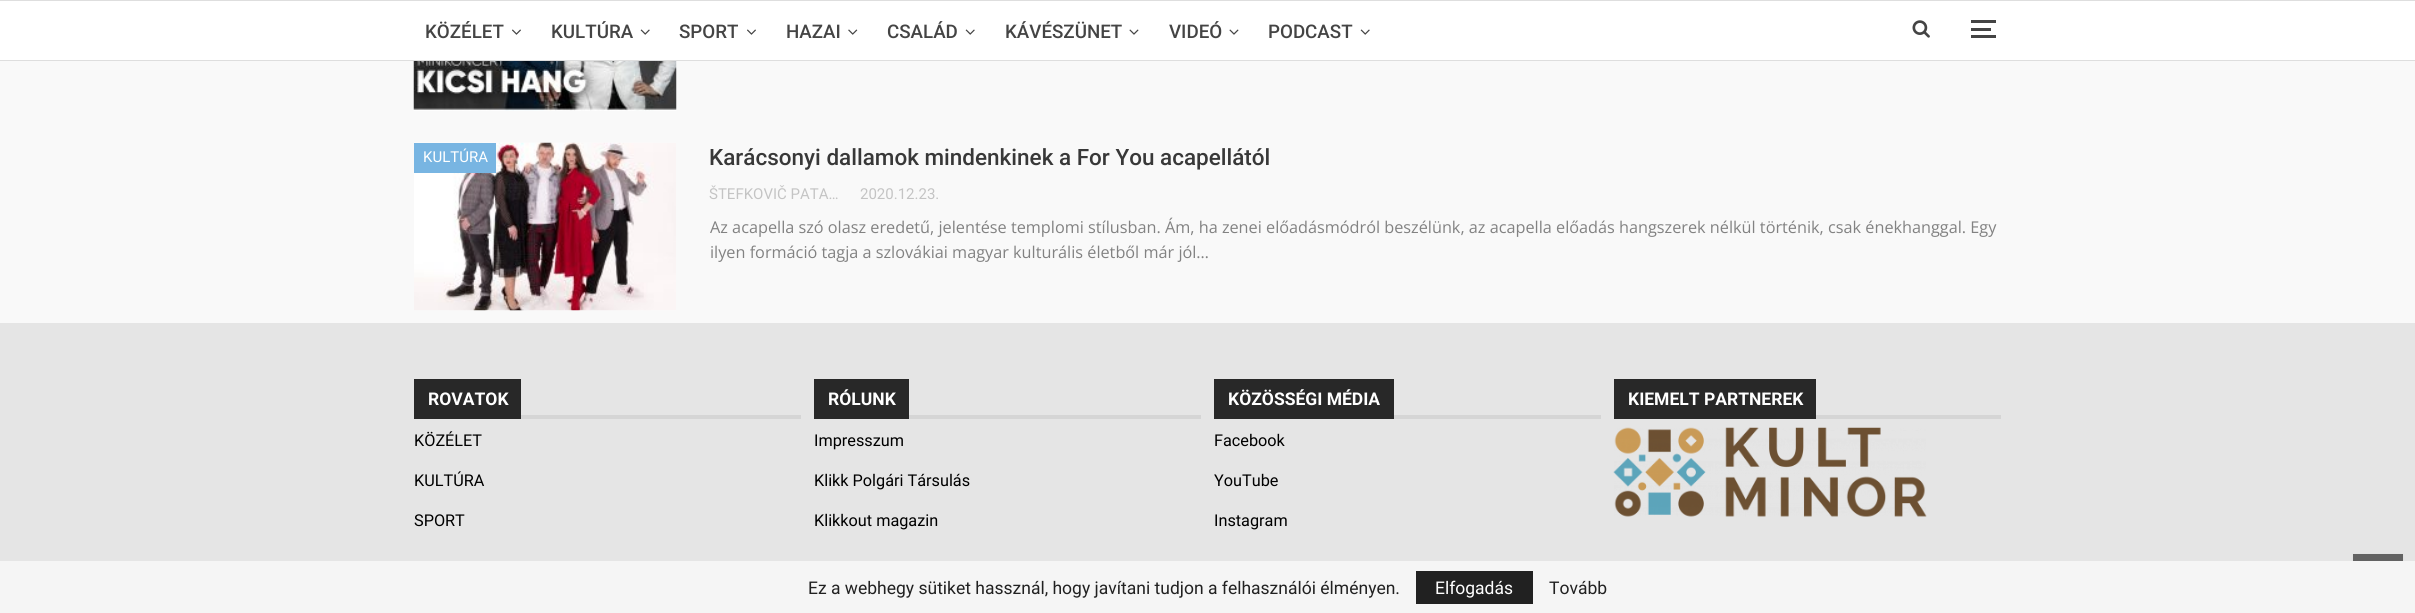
#include <cairo.h>
#include <math.h>
#include <stddef.h>

static cairo_t *ctx;

static void use_color(int r, int g, int b) {
    cairo_set_source_rgb(ctx, r / 255.0, g / 255.0, b / 255.0);
}

static void round_rect(double x, double y, double w, double h, double r) {
    cairo_new_sub_path(ctx);
    cairo_arc(ctx, x + w - r, y + h - r, r, 0, M_PI / 2);
    cairo_arc(ctx, x + r, y + h - r, r, M_PI / 2, M_PI);
    cairo_arc(ctx, x + r, y + r, r, M_PI, 1.5 * M_PI);
    cairo_arc(ctx, x + w - r, y + r, r, 1.5 * M_PI, 2 * M_PI);
    cairo_close_path(ctx);
}

static void shadow(double x, double y, double w, double h, double r, double blur, double alpha) {
    cairo_push_group_with_content(ctx, CAIRO_CONTENT_ALPHA);
    cairo_set_operator(ctx, CAIRO_OPERATOR_SOURCE);
    for (int i = 15; i >= -15 && fmin(w, h) + blur * i / 3 > 0; i -= 2) {
        double e = blur * i / 6;
        cairo_set_source_rgba(ctx, 0, 0, 0, alpha * erfc((i - 1) / 8.5) / 2);
        round_rect(x - e, y - e, w + 2 * e, h + 2 * e, fmax(0, fmin(r + e + blur * .6, fmin(w, h) / 2 + e)));
        cairo_fill(ctx);
    }
    cairo_pattern_t *soft = cairo_pop_group(ctx);
    cairo_mask(ctx, soft);
    cairo_pattern_destroy(soft);
}

static void picture(const char *path, double x, double y, double w, double h) {
    cairo_surface_t *image = cairo_image_surface_create_from_png(path);
    cairo_save(ctx);
    cairo_set_source_surface(ctx, image, x, y);
    cairo_rectangle(ctx, x, y, w, h);
    cairo_fill(ctx);
    cairo_restore(ctx);
    cairo_surface_destroy(image);
}

int main(void) {
    cairo_surface_t *surface = cairo_image_surface_create(CAIRO_FORMAT_RGB24, 2415, 613);
    ctx = cairo_create(surface);
    cairo_font_options_t *options = cairo_font_options_create();
    cairo_font_options_set_hint_metrics(options, CAIRO_HINT_METRICS_OFF);
    cairo_font_options_set_hint_style(options, CAIRO_HINT_STYLE_NONE);
    cairo_set_font_options(ctx, options);
    cairo_set_miter_limit(ctx, 4);
    use_color(249, 249, 249);
    cairo_paint(ctx);
    use_color(255, 255, 255);
    cairo_rectangle(ctx, 0, 1, 2415, 59);
    cairo_fill(ctx);
    use_color(222, 222, 222);
    cairo_rectangle(ctx, 0, 0, 2415, 1);
    cairo_fill(ctx);
    cairo_rectangle(ctx, 0, 60, 2415, 1);
    cairo_fill(ctx);
    cairo_select_font_face(ctx, "Roboto Medium", CAIRO_FONT_SLANT_NORMAL, CAIRO_FONT_WEIGHT_NORMAL);
    cairo_set_font_size(ctx, 18.75);
    use_color(68, 68, 68);
    cairo_move_to(ctx, 425, 38);
    cairo_show_text(ctx, "KÖZÉLET");
    picture("img1.png", 512, 29, 9, 6);
    cairo_move_to(ctx, 551, 38);
    cairo_show_text(ctx, "KULTÚRA");
    picture("img2.png", 640, 29, 10, 6);
    cairo_move_to(ctx, 679, 38);
    cairo_show_text(ctx, "SPORT");
    picture("img1.png", 747, 29, 9, 6);
    cairo_move_to(ctx, 786, 38);
    cairo_show_text(ctx, "HAZAI");
    picture("img3.png", 848, 29, 10, 6);
    cairo_move_to(ctx, 887, 38);
    cairo_show_text(ctx, "CSALÁD");
    picture("img2.png", 965, 29, 10, 6);
    cairo_move_to(ctx, 1005, 38);
    cairo_show_text(ctx, "KÁVÉSZÜNET");
    picture("img4.png", 1129, 29, 10, 6);
    cairo_move_to(ctx, 1169, 38);
    cairo_show_text(ctx, "VIDEÓ");
    picture("img4.png", 1229, 29, 10, 6);
    cairo_move_to(ctx, 1268, 38);
    cairo_show_text(ctx, "PODCAST");
    picture("img2.png", 1360, 29, 10, 6);
    picture("img5.png", 1912, 20, 18, 18);
    cairo_rectangle(ctx, 1971, 28, 20, 3);
    cairo_fill(ctx);
    cairo_rectangle(ctx, 1971, 20, 25, 3);
    cairo_fill(ctx);
    cairo_rectangle(ctx, 1971, 35, 25, 3);
    cairo_fill(ctx);
    picture("img6.png", 413, 61, 264, 50);
    picture("img7.png", 414, 142, 262, 169);
    use_color(120, 181, 226);
    cairo_rectangle(ctx, 414, 143, 82, 30);
    cairo_fill(ctx);
    cairo_select_font_face(ctx, "Roboto", CAIRO_FONT_SLANT_NORMAL, CAIRO_FONT_WEIGHT_NORMAL);
    cairo_set_font_size(ctx, 15);
    use_color(255, 255, 255);
    cairo_move_to(ctx, 423, 162);
    cairo_show_text(ctx, "KULTÚRA");
    cairo_select_font_face(ctx, "Roboto Medium", CAIRO_FONT_SLANT_NORMAL, CAIRO_FONT_WEIGHT_NORMAL);
    cairo_set_font_size(ctx, 22.5);
    use_color(56, 56, 56);
    cairo_move_to(ctx, 709, 165);
    cairo_show_text(ctx, "Karácsonyi dallamok mindenkinek a For You acapellától");
    cairo_select_font_face(ctx, "Roboto", CAIRO_FONT_SLANT_NORMAL, CAIRO_FONT_WEIGHT_NORMAL);
    cairo_set_font_size(ctx, 15);
    use_color(196, 196, 196);
    cairo_move_to(ctx, 709, 199);
    cairo_show_text(ctx, "ŠTEFKOVIČ PATA…");
    cairo_move_to(ctx, 860, 199);
    cairo_show_text(ctx, "2020.12.23.");
    cairo_select_font_face(ctx, "Open Sans", CAIRO_FONT_SLANT_NORMAL, CAIRO_FONT_WEIGHT_NORMAL);
    cairo_set_font_size(ctx, 16.25);
    use_color(130, 130, 130);
    cairo_move_to(ctx, 710, 233);
    cairo_show_text(ctx, "Az acapella szó olasz eredetű, jelentése templomi stílusban. Ám, ha zenei előadásmódról beszélünk, az acapella előadás hangszerek nélkül történik, csak énekhanggal. Egy");
    cairo_move_to(ctx, 710, 258);
    cairo_show_text(ctx, "ilyen formáció tagja a szlovákiai magyar kulturális életből már jól…");
    use_color(229, 229, 229);
    cairo_rectangle(ctx, 0, 323, 2415, 238);
    cairo_fill(ctx);
    use_color(40, 40, 40);
    cairo_rectangle(ctx, 414, 379, 107, 40);
    cairo_fill(ctx);
    cairo_select_font_face(ctx, "Roboto", CAIRO_FONT_SLANT_NORMAL, CAIRO_FONT_WEIGHT_BOLD);
    cairo_set_font_size(ctx, 17.5);
    use_color(255, 255, 255);
    cairo_move_to(ctx, 428, 405);
    cairo_show_text(ctx, "ROVATOK");
    use_color(213, 213, 213);
    cairo_rectangle(ctx, 521, 415, 280, 4);
    cairo_fill(ctx);
    cairo_select_font_face(ctx, "Roboto", CAIRO_FONT_SLANT_NORMAL, CAIRO_FONT_WEIGHT_NORMAL);
    cairo_set_font_size(ctx, 16.25);
    use_color(0, 0, 0);
    cairo_move_to(ctx, 414, 446);
    cairo_show_text(ctx, "KÖZÉLET");
    cairo_move_to(ctx, 414, 486);
    cairo_show_text(ctx, "KULTÚRA");
    cairo_move_to(ctx, 414, 526);
    cairo_show_text(ctx, "SPORT");
    use_color(40, 40, 40);
    cairo_rectangle(ctx, 814, 379, 95, 40);
    cairo_fill(ctx);
    cairo_select_font_face(ctx, "Roboto", CAIRO_FONT_SLANT_NORMAL, CAIRO_FONT_WEIGHT_BOLD);
    cairo_set_font_size(ctx, 17.5);
    use_color(255, 255, 255);
    cairo_move_to(ctx, 828, 405);
    cairo_show_text(ctx, "RÓLUNK");
    use_color(213, 213, 213);
    cairo_rectangle(ctx, 909, 415, 292, 4);
    cairo_fill(ctx);
    cairo_select_font_face(ctx, "Roboto", CAIRO_FONT_SLANT_NORMAL, CAIRO_FONT_WEIGHT_NORMAL);
    cairo_set_font_size(ctx, 16.25);
    use_color(0, 0, 0);
    cairo_move_to(ctx, 814, 446);
    cairo_show_text(ctx, "Impresszum");
    cairo_move_to(ctx, 814, 486);
    cairo_show_text(ctx, "Klikk Polgári Társulás");
    cairo_move_to(ctx, 814, 526);
    cairo_show_text(ctx, "Klikkout magazin");
    use_color(40, 40, 40);
    cairo_rectangle(ctx, 1214, 379, 180, 40);
    cairo_fill(ctx);
    cairo_select_font_face(ctx, "Roboto", CAIRO_FONT_SLANT_NORMAL, CAIRO_FONT_WEIGHT_BOLD);
    cairo_set_font_size(ctx, 17.5);
    use_color(255, 255, 255);
    cairo_move_to(ctx, 1228, 405);
    cairo_show_text(ctx, "KÖZÖSSÉGI MÉDIA");
    use_color(213, 213, 213);
    cairo_rectangle(ctx, 1394, 415, 207, 4);
    cairo_fill(ctx);
    cairo_select_font_face(ctx, "Roboto", CAIRO_FONT_SLANT_NORMAL, CAIRO_FONT_WEIGHT_NORMAL);
    cairo_set_font_size(ctx, 16.25);
    use_color(0, 0, 0);
    cairo_move_to(ctx, 1214, 446);
    cairo_show_text(ctx, "Facebook");
    cairo_move_to(ctx, 1214, 486);
    cairo_show_text(ctx, "YouTube");
    cairo_move_to(ctx, 1214, 526);
    cairo_show_text(ctx, "Instagram");
    use_color(40, 40, 40);
    cairo_rectangle(ctx, 1614, 379, 202, 40);
    cairo_fill(ctx);
    cairo_select_font_face(ctx, "Roboto", CAIRO_FONT_SLANT_NORMAL, CAIRO_FONT_WEIGHT_BOLD);
    cairo_set_font_size(ctx, 17.5);
    use_color(255, 255, 255);
    cairo_move_to(ctx, 1628, 405);
    cairo_show_text(ctx, "KIEMELT PARTNEREK");
    use_color(213, 213, 213);
    cairo_rectangle(ctx, 1816, 415, 185, 4);
    cairo_fill(ctx);
    picture("img8.png", 1613, 427, 314, 90);
    use_color(92, 92, 92);
    shadow(2353, 555, 50, 50, 0, 1, 0.09);
    use_color(245, 245, 245);
    cairo_rectangle(ctx, 0, 561, 2415, 52);
    cairo_fill(ctx);
    cairo_select_font_face(ctx, "Roboto", CAIRO_FONT_SLANT_NORMAL, CAIRO_FONT_WEIGHT_NORMAL);
    use_color(33, 33, 33);
    cairo_move_to(ctx, 808, 594);
    cairo_show_text(ctx, "Ez a webhegy sütiket hassznál, hogy javítani tudjon a felhasználói élményen.");
    cairo_rectangle(ctx, 1416, 571, 117, 33);
    cairo_fill(ctx);
    use_color(255, 255, 255);
    cairo_move_to(ctx, 1435, 594);
    cairo_show_text(ctx, "Elfogadás");
    use_color(33, 33, 33);
    cairo_move_to(ctx, 1549, 594);
    cairo_show_text(ctx, "Tovább");
    use_color(98, 98, 98);
    cairo_rectangle(ctx, 2353, 554, 50, 7);
    cairo_fill(ctx);
    cairo_surface_write_to_png(surface, "result.png");
    cairo_font_options_destroy(options);
    cairo_destroy(ctx);
    cairo_surface_destroy(surface);
    return 0;
}
